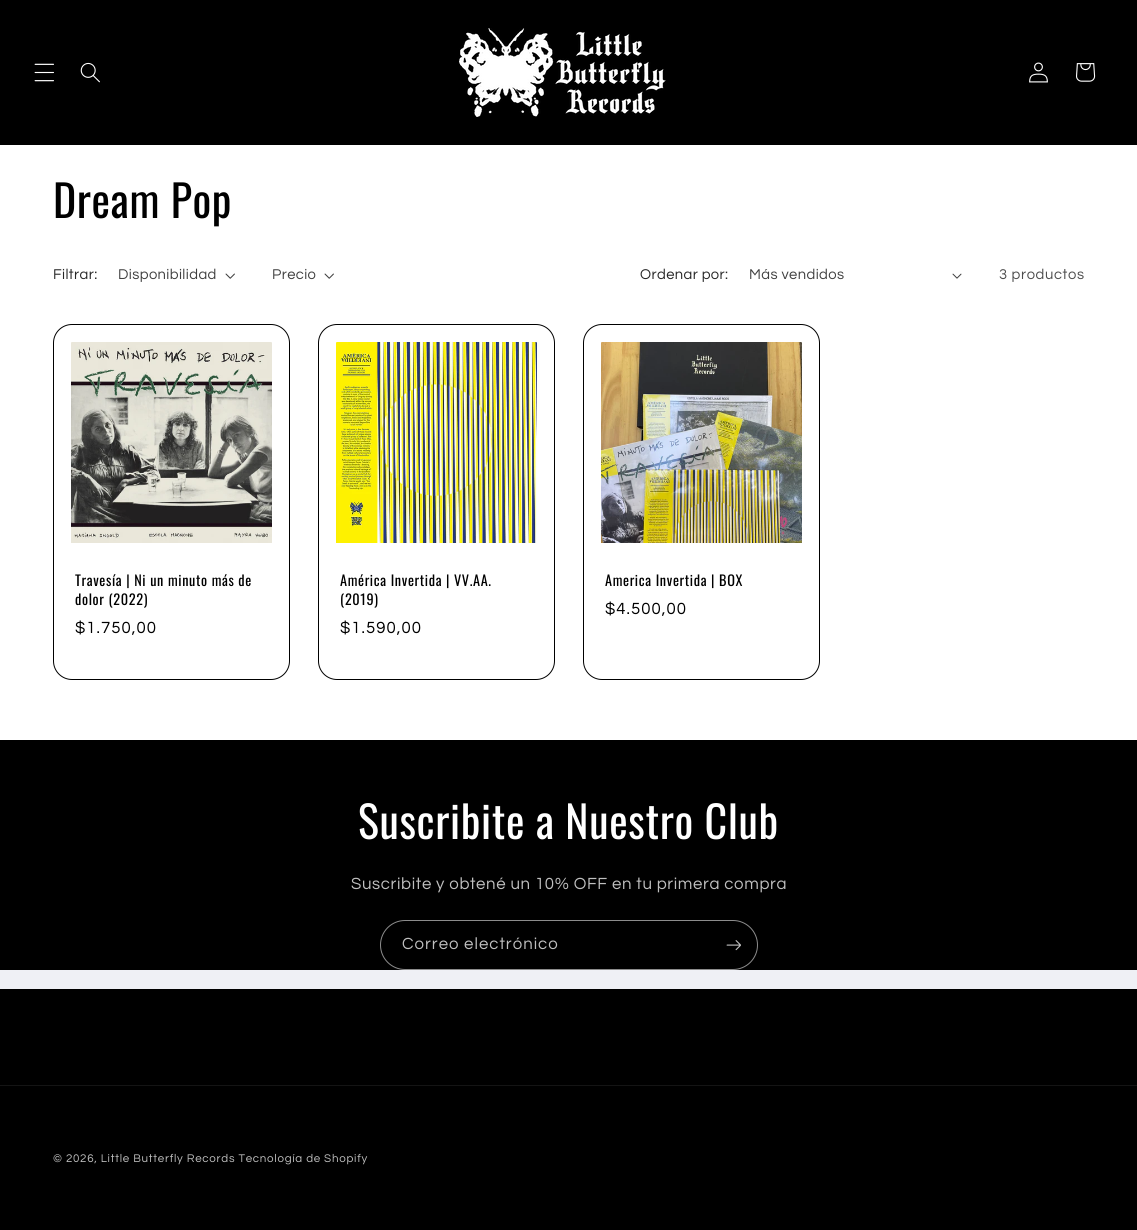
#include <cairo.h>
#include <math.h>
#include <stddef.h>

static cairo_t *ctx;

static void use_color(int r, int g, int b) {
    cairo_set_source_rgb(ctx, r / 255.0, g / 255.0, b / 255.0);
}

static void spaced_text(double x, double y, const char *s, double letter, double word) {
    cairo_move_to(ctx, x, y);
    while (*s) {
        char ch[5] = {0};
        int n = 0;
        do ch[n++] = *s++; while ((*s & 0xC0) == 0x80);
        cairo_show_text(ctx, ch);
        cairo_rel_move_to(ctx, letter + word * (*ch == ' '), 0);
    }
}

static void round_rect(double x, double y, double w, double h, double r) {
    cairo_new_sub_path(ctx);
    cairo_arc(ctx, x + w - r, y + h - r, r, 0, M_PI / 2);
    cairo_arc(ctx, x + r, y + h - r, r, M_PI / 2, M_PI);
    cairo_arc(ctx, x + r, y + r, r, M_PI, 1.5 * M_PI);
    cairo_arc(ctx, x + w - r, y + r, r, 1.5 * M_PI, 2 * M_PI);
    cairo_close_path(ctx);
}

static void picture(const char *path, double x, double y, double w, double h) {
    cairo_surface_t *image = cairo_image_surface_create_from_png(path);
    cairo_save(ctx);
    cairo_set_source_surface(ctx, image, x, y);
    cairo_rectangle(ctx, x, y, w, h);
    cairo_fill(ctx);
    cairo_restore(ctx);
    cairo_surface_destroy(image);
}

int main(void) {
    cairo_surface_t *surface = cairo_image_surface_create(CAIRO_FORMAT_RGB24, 1137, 1230);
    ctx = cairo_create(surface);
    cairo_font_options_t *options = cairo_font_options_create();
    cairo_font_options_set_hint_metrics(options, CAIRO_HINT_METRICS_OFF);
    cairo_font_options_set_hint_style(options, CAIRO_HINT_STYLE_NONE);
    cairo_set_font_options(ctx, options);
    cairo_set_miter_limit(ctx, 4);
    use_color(239, 240, 245);
    cairo_paint(ctx);
    use_color(0, 0, 0);
    cairo_rectangle(ctx, 0, 0, 1137, 145);
    cairo_fill(ctx);
    picture("img1.png", 34, 63, 20, 19);
    picture("img2.png", 80, 62, 20, 21);
    picture("img3.png", 459, 28, 207, 89);
    picture("img4.png", 1029, 62, 19, 21);
    picture("img5.png", 1076, 63, 20, 19);
    use_color(255, 255, 255);
    cairo_rectangle(ctx, 0, 145, 1137, 595);
    cairo_fill(ctx);
    cairo_select_font_face(ctx, "Oswald", CAIRO_FONT_SLANT_NORMAL, CAIRO_FONT_WEIGHT_NORMAL);
    cairo_set_font_size(ctx, 44);
    use_color(0, 0, 0);
    spaced_text(53, 218, "Dream Pop", 0.65, 0);
    cairo_select_font_face(ctx, "Questrial", CAIRO_FONT_SLANT_NORMAL, CAIRO_FONT_WEIGHT_NORMAL);
    cairo_set_font_size(ctx, 14.75);
    use_color(38, 38, 38);
    spaced_text(53, 279, "Filtrar:", 0.4, 0);
    use_color(64, 64, 64);
    spaced_text(118, 279, "Disponibilidad", 0.4, 0);
    picture("img6.png", 225, 273, 10, 6);
    spaced_text(272, 279, "Precio", 0.4, 0);
    picture("img6.png", 324, 273, 10, 6);
    use_color(38, 38, 38);
    spaced_text(640, 279, "Ordenar por:", 0.4, 0);
    use_color(64, 64, 64);
    spaced_text(749, 279, "Más vendidos", 0.4, 0);
    picture("img7.png", 952, 273, 10, 6);
    use_color(77, 77, 77);
    spaced_text(999, 279, "3 productos", 0.63, 0);
    round_rect(53.5, 324.5, 236, 355, 18.5);
    use_color(0, 0, 0);
    cairo_set_line_width(ctx, 1);
    cairo_stroke(ctx);
    picture("img8.png", 71, 342, 201, 201);
    cairo_select_font_face(ctx, "Oswald", CAIRO_FONT_SLANT_NORMAL, CAIRO_FONT_WEIGHT_NORMAL);
    cairo_set_font_size(ctx, 14.25);
    spaced_text(75, 586, "Travesía | Ni un minuto más de", 0.65, 0);
    spaced_text(75, 605, "dolor (2022)", 0.65, 0);
    cairo_select_font_face(ctx, "Questrial", CAIRO_FONT_SLANT_NORMAL, CAIRO_FONT_WEIGHT_NORMAL);
    cairo_set_font_size(ctx, 16.8);
    spaced_text(75, 633, "$1.750,00", 1, 0);
    round_rect(318.5, 324.5, 236, 355, 18.5);
    cairo_stroke(ctx);
    picture("img9.png", 336, 342, 201, 201);
    cairo_select_font_face(ctx, "Oswald", CAIRO_FONT_SLANT_NORMAL, CAIRO_FONT_WEIGHT_NORMAL);
    cairo_set_font_size(ctx, 14.25);
    spaced_text(340, 586, "América Invertida | VV.AA.", 0.65, 0);
    spaced_text(340, 605, "(2019)", 0.65, 0);
    cairo_select_font_face(ctx, "Questrial", CAIRO_FONT_SLANT_NORMAL, CAIRO_FONT_WEIGHT_NORMAL);
    cairo_set_font_size(ctx, 16.8);
    spaced_text(340, 633, "$1.590,00", 1, 0);
    round_rect(583.5, 324.5, 236, 355, 18.5);
    cairo_stroke(ctx);
    picture("img10.png", 601, 342, 201, 201);
    cairo_select_font_face(ctx, "Oswald", CAIRO_FONT_SLANT_NORMAL, CAIRO_FONT_WEIGHT_NORMAL);
    cairo_set_font_size(ctx, 14.25);
    spaced_text(605, 586, "America Invertida | BOX", 0.65, 0);
    cairo_select_font_face(ctx, "Questrial", CAIRO_FONT_SLANT_NORMAL, CAIRO_FONT_WEIGHT_NORMAL);
    cairo_set_font_size(ctx, 16.8);
    spaced_text(605, 614, "$4.500,00", 1, 0);
    cairo_rectangle(ctx, 0, 740, 1137, 230);
    cairo_fill(ctx);
    cairo_select_font_face(ctx, "Oswald", CAIRO_FONT_SLANT_NORMAL, CAIRO_FONT_WEIGHT_NORMAL);
    cairo_set_font_size(ctx, 44);
    use_color(255, 255, 255);
    spaced_text(358, 839, "Suscribite a Nuestro Club", 0.65, 0);
    cairo_select_font_face(ctx, "Questrial", CAIRO_FONT_SLANT_NORMAL, CAIRO_FONT_WEIGHT_NORMAL);
    cairo_set_font_size(ctx, 16.8);
    use_color(191, 191, 191);
    spaced_text(351, 889, "Suscribite y obtené un 10% OFF en tu primera compra", 0.63, 0);
    round_rect(380.5, 920.5, 377, 49, 24.5);
    use_color(140, 140, 140);
    cairo_stroke(ctx);
    use_color(191, 191, 191);
    spaced_text(402, 949, "Correo electrónico", 1, 0);
    picture("img11.png", 726, 940, 15, 11);
    use_color(0, 0, 0);
    cairo_rectangle(ctx, 0, 989, 1137, 241);
    cairo_fill(ctx);
    use_color(20, 20, 20);
    cairo_rectangle(ctx, 0, 1085, 1137, 1);
    cairo_fill(ctx);
    cairo_set_font_size(ctx, 11.55);
    use_color(191, 191, 191);
    spaced_text(53, 1162, "© 2026, Little Butterfly Records Tecnología de Shopify", 0.73, 0);
    cairo_surface_write_to_png(surface, "result.png");
    cairo_font_options_destroy(options);
    cairo_destroy(ctx);
    cairo_surface_destroy(surface);
    return 0;
}
